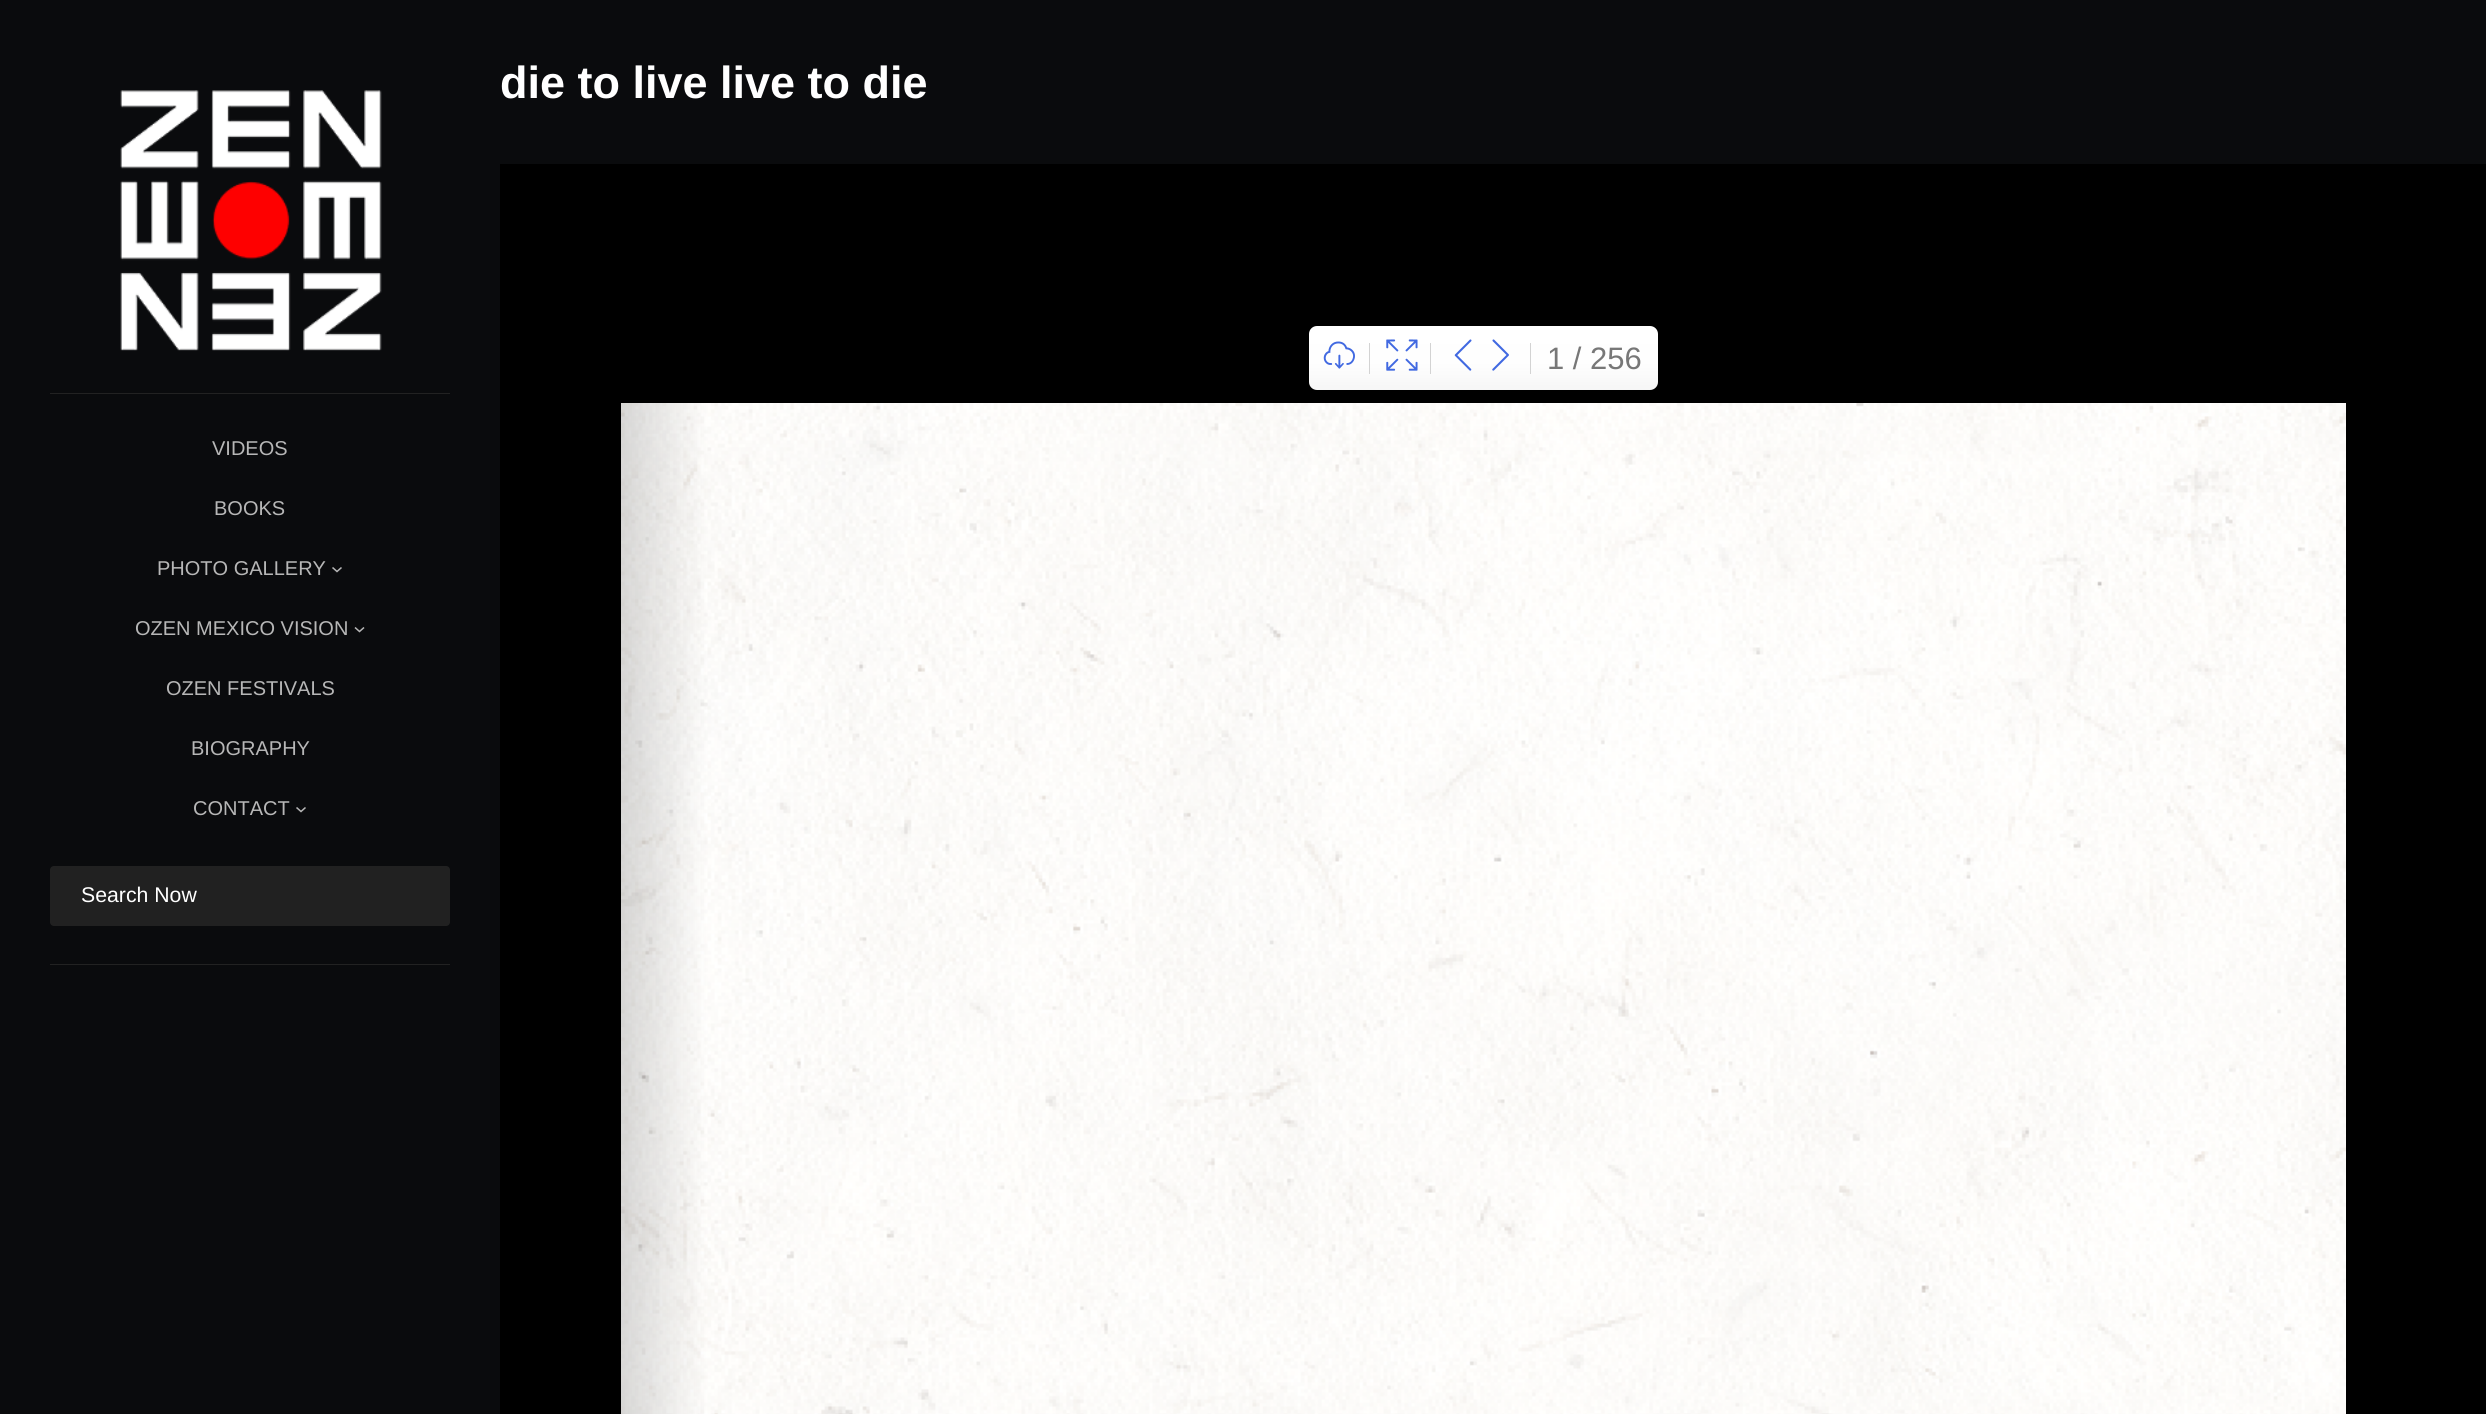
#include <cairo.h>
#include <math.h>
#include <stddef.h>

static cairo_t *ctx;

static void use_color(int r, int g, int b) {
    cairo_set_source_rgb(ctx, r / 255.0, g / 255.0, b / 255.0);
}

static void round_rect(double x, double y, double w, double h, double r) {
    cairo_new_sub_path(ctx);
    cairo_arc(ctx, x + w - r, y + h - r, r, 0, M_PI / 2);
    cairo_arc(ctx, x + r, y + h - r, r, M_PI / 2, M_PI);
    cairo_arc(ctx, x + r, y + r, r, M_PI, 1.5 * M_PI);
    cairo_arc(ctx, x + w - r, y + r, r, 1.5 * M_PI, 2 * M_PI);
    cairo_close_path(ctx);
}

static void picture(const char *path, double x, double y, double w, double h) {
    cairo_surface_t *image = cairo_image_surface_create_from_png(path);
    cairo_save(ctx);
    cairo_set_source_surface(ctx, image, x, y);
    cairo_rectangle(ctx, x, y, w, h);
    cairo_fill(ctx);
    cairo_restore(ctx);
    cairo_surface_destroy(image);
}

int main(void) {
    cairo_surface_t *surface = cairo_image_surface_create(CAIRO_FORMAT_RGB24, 2486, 1414);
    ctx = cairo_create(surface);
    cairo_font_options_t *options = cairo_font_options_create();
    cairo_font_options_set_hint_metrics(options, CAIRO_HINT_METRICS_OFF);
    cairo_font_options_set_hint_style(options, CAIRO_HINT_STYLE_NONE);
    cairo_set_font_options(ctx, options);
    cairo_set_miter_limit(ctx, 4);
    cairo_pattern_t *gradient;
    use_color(0, 0, 0);
    cairo_paint(ctx);
    use_color(10, 11, 13);
    cairo_rectangle(ctx, 500, 0, 1986, 164);
    cairo_fill(ctx);
    cairo_select_font_face(ctx, "Liberation Sans", CAIRO_FONT_SLANT_NORMAL, CAIRO_FONT_WEIGHT_BOLD);
    cairo_set_font_size(ctx, 45);
    use_color(255, 255, 255);
    cairo_move_to(ctx, 500, 98);
    cairo_show_text(ctx, "die to live live to die");
    gradient = cairo_pattern_create_linear(1483, 326, 1483, 390);
    cairo_pattern_add_color_stop_rgba(gradient, 0, 1, 1, 1, 1);
    cairo_pattern_add_color_stop_rgba(gradient, 0.57, 0.996, 0.996, 0.996, 1);
    cairo_pattern_add_color_stop_rgba(gradient, 1, 0.965, 0.965, 0.965, 1);
    cairo_set_source(ctx, gradient);
    cairo_pattern_destroy(gradient);
    round_rect(1309, 326, 349, 64, 8);
    cairo_fill(ctx);
    picture("img1.png", 1323, 341, 32, 28);
    use_color(211, 211, 211);
    cairo_rectangle(ctx, 1369, 343, 1, 31);
    cairo_fill(ctx);
    picture("img2.png", 1386, 339, 32, 32);
    cairo_rectangle(ctx, 1430, 343, 1, 31);
    cairo_fill(ctx);
    picture("img3.png", 1454, 339, 18, 32);
    picture("img4.png", 1492, 339, 17, 32);
    cairo_rectangle(ctx, 1530, 343, 1, 31);
    cairo_fill(ctx);
    cairo_select_font_face(ctx, "Liberation Sans", CAIRO_FONT_SLANT_NORMAL, CAIRO_FONT_WEIGHT_NORMAL);
    cairo_set_font_size(ctx, 31);
    use_color(119, 119, 119);
    cairo_move_to(ctx, 1547, 369);
    cairo_show_text(ctx, "1 / 256");
    picture("img5.png", 621, 403, 1725, 1011);
    use_color(10, 11, 13);
    cairo_rectangle(ctx, 0, 0, 500, 1414);
    cairo_fill(ctx);
    picture("img6.png", 120, 90, 262, 261);
    use_color(34, 34, 34);
    cairo_rectangle(ctx, 50, 393, 400, 1);
    cairo_fill(ctx);
    cairo_set_font_size(ctx, 20);
    use_color(183, 183, 183);
    cairo_move_to(ctx, 212, 455);
    cairo_show_text(ctx, "VIDEOS");
    cairo_move_to(ctx, 214, 515);
    cairo_show_text(ctx, "BOOKS");
    cairo_move_to(ctx, 157, 575);
    cairo_show_text(ctx, "PHOTO GALLERY");
    cairo_new_path(ctx);
    cairo_move_to(ctx, 332.5, 567.5);
    cairo_line_to(ctx, 337, 571.5);
    cairo_line_to(ctx, 341.5, 567.5);
    cairo_set_line_width(ctx, 1.5);
    cairo_stroke(ctx);
    cairo_move_to(ctx, 135, 635);
    cairo_show_text(ctx, "OZEN MEXICO VISION");
    cairo_new_path(ctx);
    cairo_move_to(ctx, 355, 627.5);
    cairo_line_to(ctx, 359.5, 631.5);
    cairo_line_to(ctx, 364, 627.5);
    cairo_stroke(ctx);
    cairo_move_to(ctx, 166, 695);
    cairo_show_text(ctx, "OZEN FESTIVALS");
    cairo_move_to(ctx, 191, 755);
    cairo_show_text(ctx, "BIOGRAPHY");
    cairo_move_to(ctx, 193, 815);
    cairo_show_text(ctx, "CONTACT");
    cairo_new_path(ctx);
    cairo_move_to(ctx, 296.5, 807.5);
    cairo_line_to(ctx, 301, 811.5);
    cairo_line_to(ctx, 305.5, 807.5);
    cairo_stroke(ctx);
    use_color(33, 33, 33);
    round_rect(50, 866, 400, 60, 4);
    cairo_fill(ctx);
    cairo_set_font_size(ctx, 21.25);
    use_color(255, 255, 255);
    cairo_move_to(ctx, 81, 902);
    cairo_show_text(ctx, "Search Now");
    use_color(34, 34, 34);
    cairo_rectangle(ctx, 50, 964, 400, 1);
    cairo_fill(ctx);
    cairo_surface_write_to_png(surface, "result.png");
    cairo_font_options_destroy(options);
    cairo_destroy(ctx);
    cairo_surface_destroy(surface);
    return 0;
}
